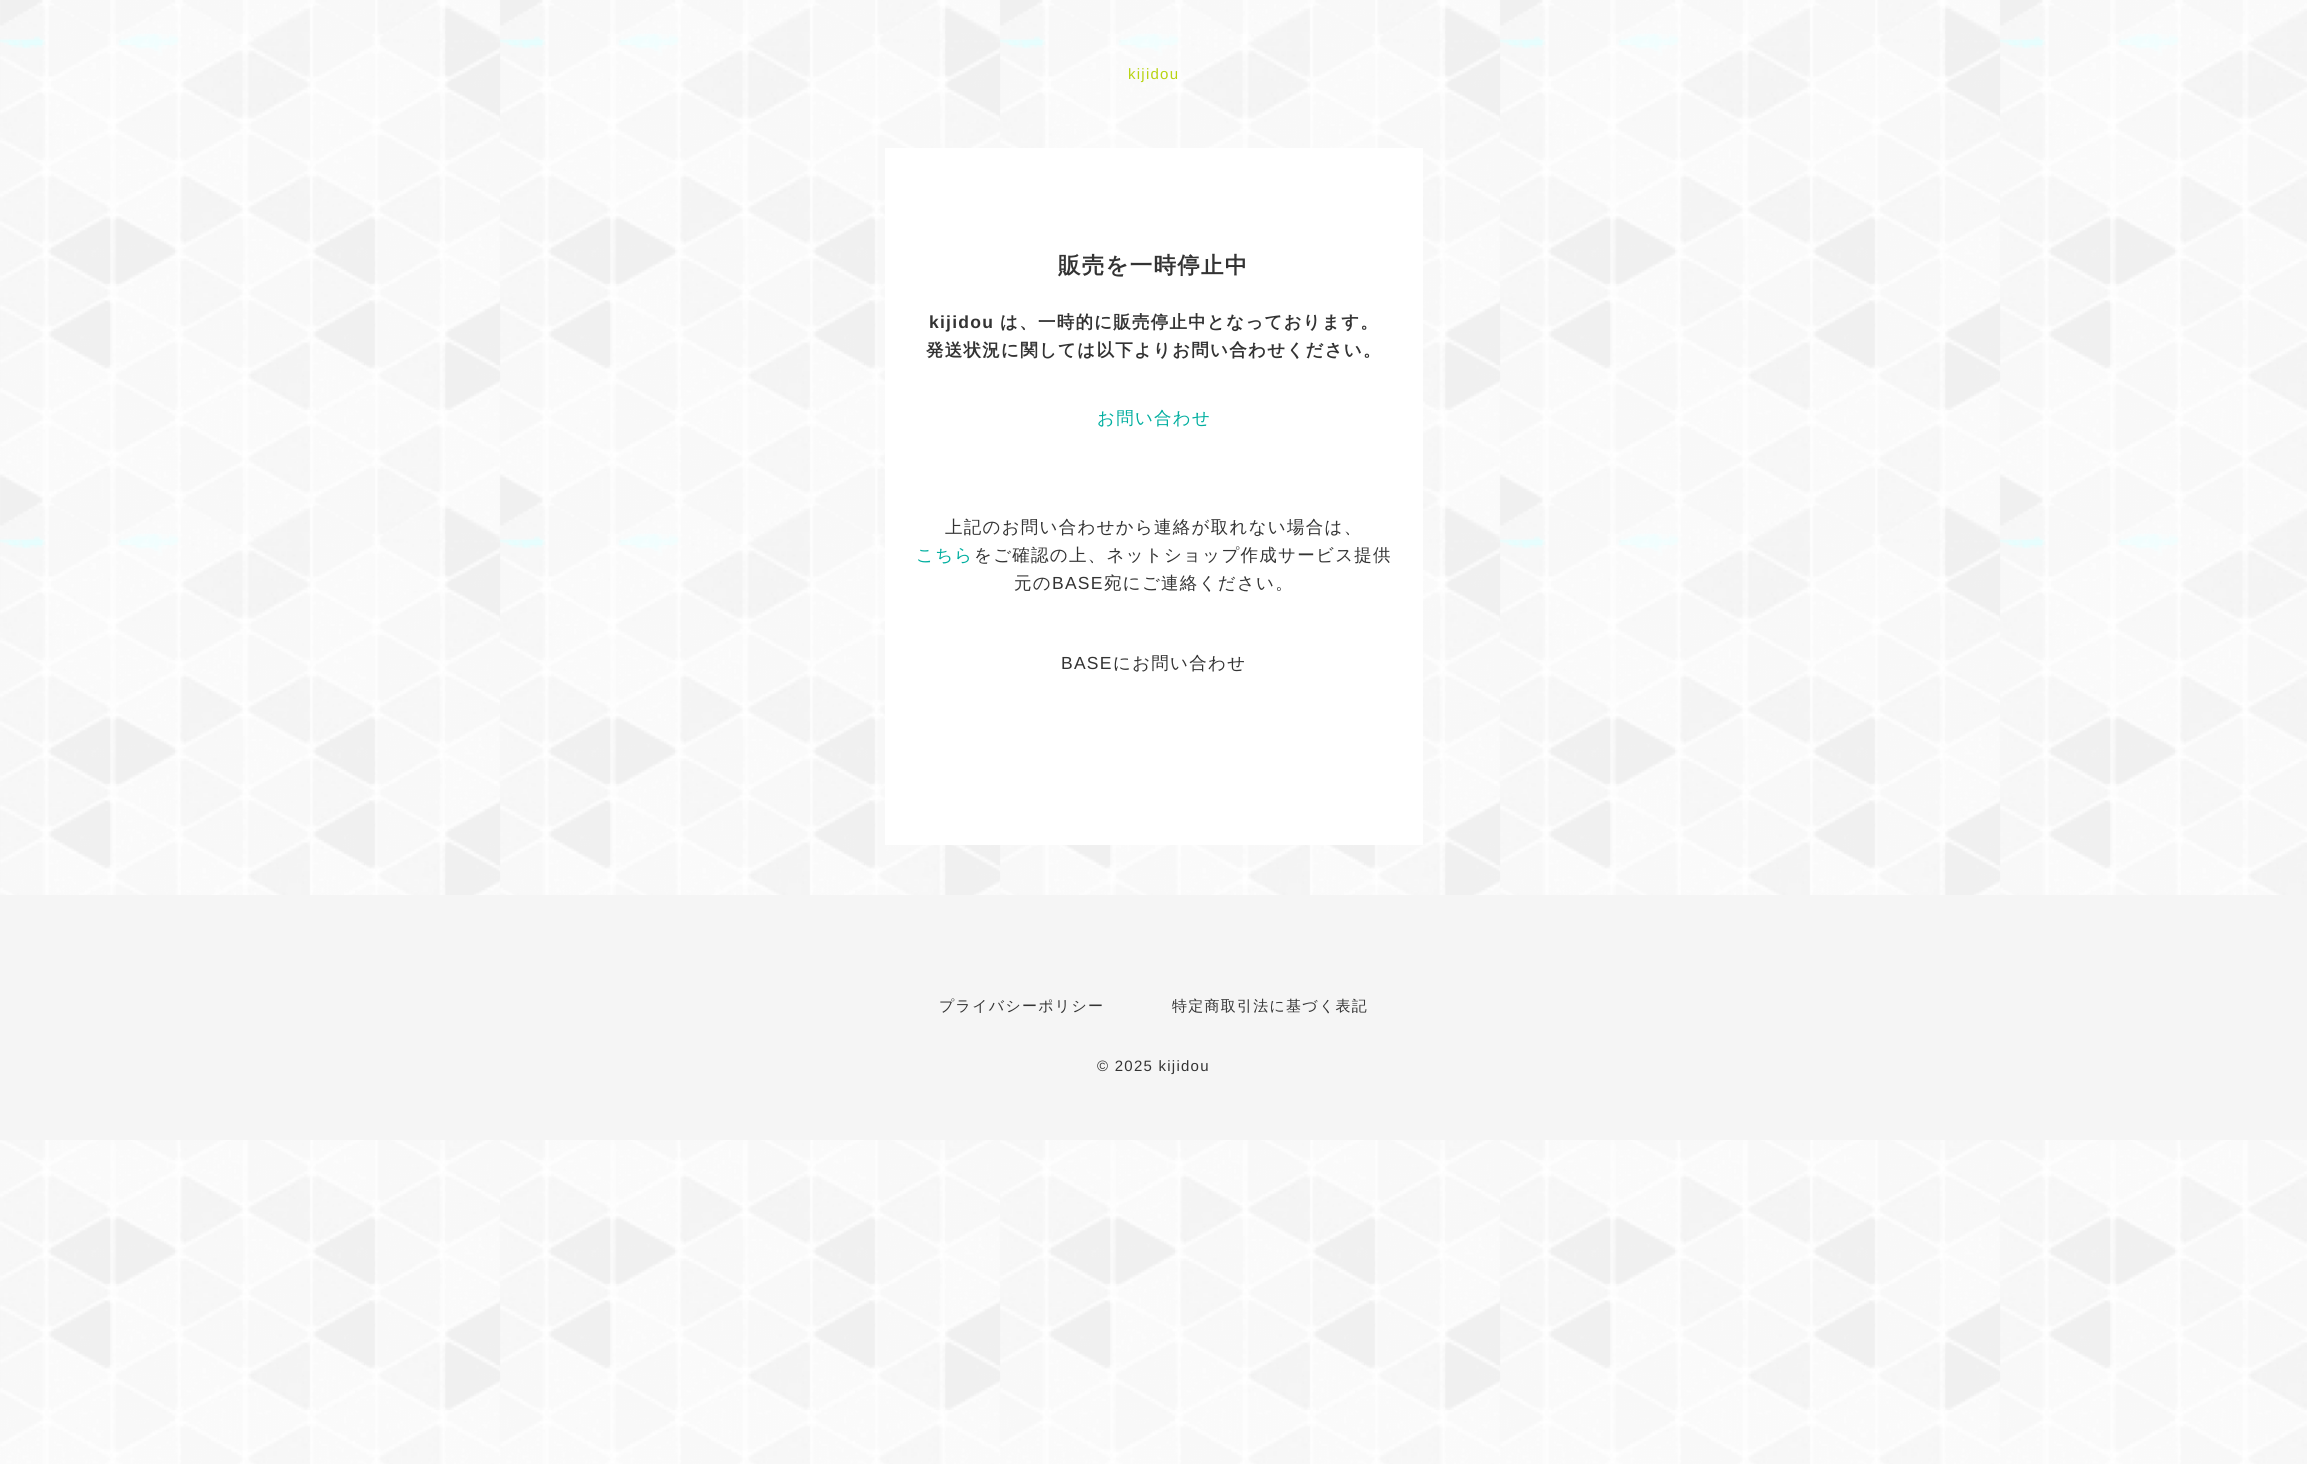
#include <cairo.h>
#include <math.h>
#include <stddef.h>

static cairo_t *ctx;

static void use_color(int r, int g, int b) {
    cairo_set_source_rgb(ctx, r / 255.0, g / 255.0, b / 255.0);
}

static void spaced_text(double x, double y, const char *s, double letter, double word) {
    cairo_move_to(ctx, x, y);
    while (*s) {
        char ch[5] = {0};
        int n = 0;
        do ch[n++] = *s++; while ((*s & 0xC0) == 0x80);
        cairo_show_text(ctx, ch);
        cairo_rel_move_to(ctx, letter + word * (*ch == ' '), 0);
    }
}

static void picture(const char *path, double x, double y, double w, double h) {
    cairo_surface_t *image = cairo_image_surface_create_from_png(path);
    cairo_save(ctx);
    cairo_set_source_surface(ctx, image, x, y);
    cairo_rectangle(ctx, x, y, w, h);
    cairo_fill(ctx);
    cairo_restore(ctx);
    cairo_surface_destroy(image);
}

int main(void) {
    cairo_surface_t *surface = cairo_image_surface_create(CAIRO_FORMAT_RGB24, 2307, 1464);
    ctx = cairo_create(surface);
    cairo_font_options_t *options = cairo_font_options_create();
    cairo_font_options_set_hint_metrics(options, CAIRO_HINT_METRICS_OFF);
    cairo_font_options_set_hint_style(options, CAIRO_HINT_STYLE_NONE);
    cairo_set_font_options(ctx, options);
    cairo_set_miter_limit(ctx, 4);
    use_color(255, 255, 255);
    cairo_paint(ctx);
    picture("img1.png", 0, 0, 2307, 1464);
    cairo_select_font_face(ctx, "Liberation Sans", CAIRO_FONT_SLANT_NORMAL, CAIRO_FONT_WEIGHT_NORMAL);
    cairo_set_font_size(ctx, 15);
    use_color(184, 211, 18);
    spaced_text(1128, 79, "kijidou", 1.25, 0);
    use_color(255, 255, 255);
    cairo_rectangle(ctx, 885, 148, 538, 697);
    cairo_fill(ctx);
    cairo_select_font_face(ctx, "WenQuanYi Zen Hei", CAIRO_FONT_SLANT_NORMAL, CAIRO_FONT_WEIGHT_BOLD);
    cairo_set_font_size(ctx, 22.5);
    use_color(51, 51, 51);
    spaced_text(1058, 273, "販売を一時停止中", 1.25, 0);
    cairo_select_font_face(ctx, "Liberation Sans", CAIRO_FONT_SLANT_NORMAL, CAIRO_FONT_WEIGHT_BOLD);
    cairo_set_font_size(ctx, 17.5);
    spaced_text(929, 328, "kijidou", 1.25, 0);
    cairo_select_font_face(ctx, "WenQuanYi Zen Hei", CAIRO_FONT_SLANT_NORMAL, CAIRO_FONT_WEIGHT_BOLD);
    spaced_text(1000, 328, "は、一時的に販売停止中となっております。", 1.25, 0);
    spaced_text(926, 356, "発送状況に関しては以下よりお問い合わせください。", 1.25, 0);
    cairo_select_font_face(ctx, "WenQuanYi Zen Hei Medium", CAIRO_FONT_SLANT_NORMAL, CAIRO_FONT_WEIGHT_NORMAL);
    use_color(0, 174, 159);
    spaced_text(1097, 424, "お問い合わせ", 1.25, 0);
    use_color(51, 51, 51);
    spaced_text(945, 533, "上記のお問い合わせから連絡が取れない場合は、", 1.25, 0);
    use_color(0, 174, 159);
    spaced_text(916, 561, "こちら", 1.25, 0);
    use_color(51, 51, 51);
    spaced_text(974, 561, "をご確認の上、ネットショップ作成サービス提供", 1.25, 0);
    spaced_text(1014, 589, "元の", 1.25, 0);
    cairo_select_font_face(ctx, "Liberation Sans", CAIRO_FONT_SLANT_NORMAL, CAIRO_FONT_WEIGHT_NORMAL);
    spaced_text(1052, 589, "BASE", 1.25, 0);
    cairo_select_font_face(ctx, "WenQuanYi Zen Hei Medium", CAIRO_FONT_SLANT_NORMAL, CAIRO_FONT_WEIGHT_NORMAL);
    spaced_text(1104, 589, "宛にご連絡ください。", 1.25, 0);
    cairo_select_font_face(ctx, "Liberation Sans", CAIRO_FONT_SLANT_NORMAL, CAIRO_FONT_WEIGHT_NORMAL);
    spaced_text(1061, 669, "BASE", 1.25, 0);
    cairo_select_font_face(ctx, "WenQuanYi Zen Hei Medium", CAIRO_FONT_SLANT_NORMAL, CAIRO_FONT_WEIGHT_NORMAL);
    spaced_text(1113, 669, "にお問い合わせ", 1.25, 0);
    use_color(245, 245, 245);
    cairo_rectangle(ctx, 0, 895, 2307, 245);
    cairo_fill(ctx);
    cairo_set_font_size(ctx, 15);
    use_color(51, 51, 51);
    spaced_text(939, 1011, "プライバシーポリシー", 1.25, 0);
    spaced_text(1172, 1011, "特定商取引法に基づく表記", 1.25, 0);
    cairo_select_font_face(ctx, "Liberation Sans", CAIRO_FONT_SLANT_NORMAL, CAIRO_FONT_WEIGHT_NORMAL);
    spaced_text(1097, 1071, "© 2025 kijidou", 1.25, 0);
    cairo_surface_write_to_png(surface, "result.png");
    cairo_font_options_destroy(options);
    cairo_destroy(ctx);
    cairo_surface_destroy(surface);
    return 0;
}
